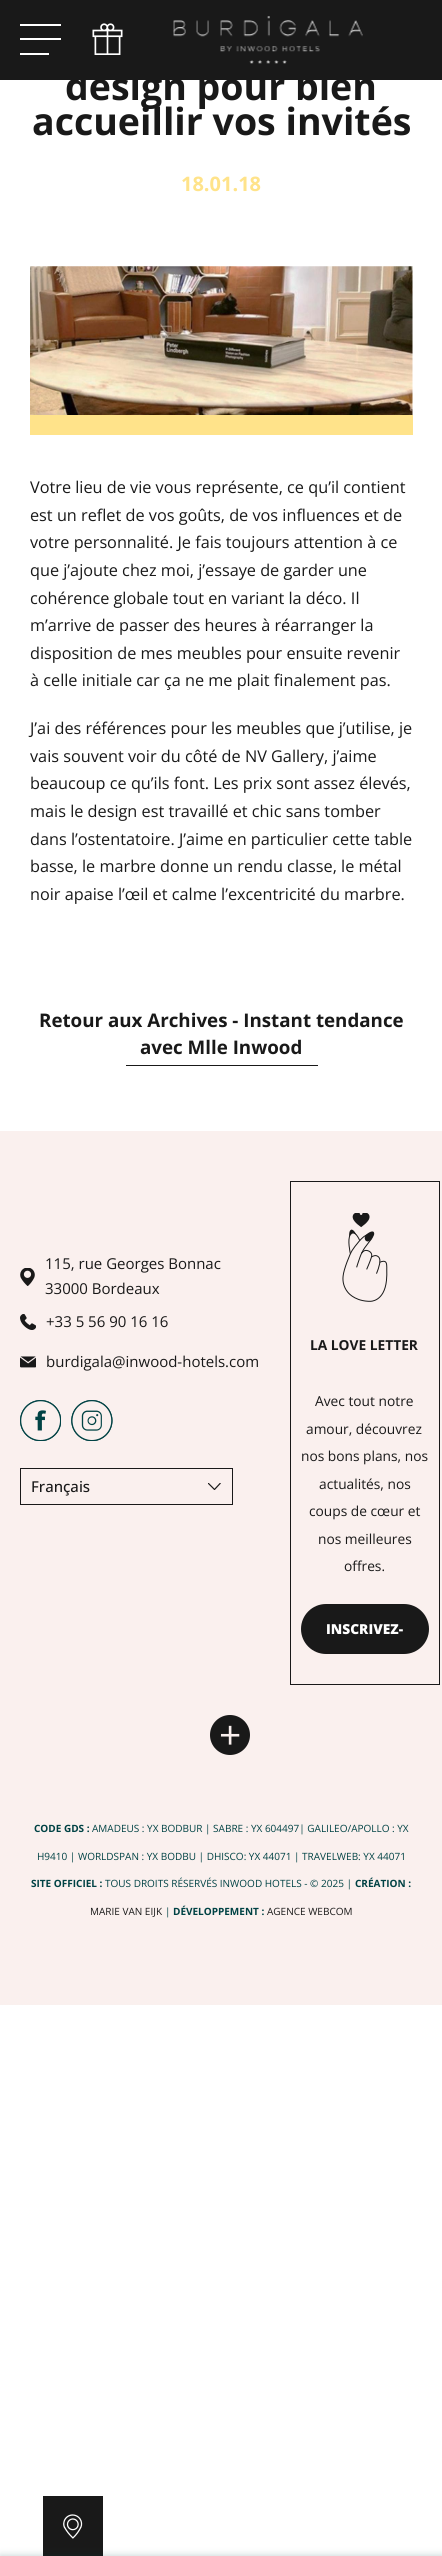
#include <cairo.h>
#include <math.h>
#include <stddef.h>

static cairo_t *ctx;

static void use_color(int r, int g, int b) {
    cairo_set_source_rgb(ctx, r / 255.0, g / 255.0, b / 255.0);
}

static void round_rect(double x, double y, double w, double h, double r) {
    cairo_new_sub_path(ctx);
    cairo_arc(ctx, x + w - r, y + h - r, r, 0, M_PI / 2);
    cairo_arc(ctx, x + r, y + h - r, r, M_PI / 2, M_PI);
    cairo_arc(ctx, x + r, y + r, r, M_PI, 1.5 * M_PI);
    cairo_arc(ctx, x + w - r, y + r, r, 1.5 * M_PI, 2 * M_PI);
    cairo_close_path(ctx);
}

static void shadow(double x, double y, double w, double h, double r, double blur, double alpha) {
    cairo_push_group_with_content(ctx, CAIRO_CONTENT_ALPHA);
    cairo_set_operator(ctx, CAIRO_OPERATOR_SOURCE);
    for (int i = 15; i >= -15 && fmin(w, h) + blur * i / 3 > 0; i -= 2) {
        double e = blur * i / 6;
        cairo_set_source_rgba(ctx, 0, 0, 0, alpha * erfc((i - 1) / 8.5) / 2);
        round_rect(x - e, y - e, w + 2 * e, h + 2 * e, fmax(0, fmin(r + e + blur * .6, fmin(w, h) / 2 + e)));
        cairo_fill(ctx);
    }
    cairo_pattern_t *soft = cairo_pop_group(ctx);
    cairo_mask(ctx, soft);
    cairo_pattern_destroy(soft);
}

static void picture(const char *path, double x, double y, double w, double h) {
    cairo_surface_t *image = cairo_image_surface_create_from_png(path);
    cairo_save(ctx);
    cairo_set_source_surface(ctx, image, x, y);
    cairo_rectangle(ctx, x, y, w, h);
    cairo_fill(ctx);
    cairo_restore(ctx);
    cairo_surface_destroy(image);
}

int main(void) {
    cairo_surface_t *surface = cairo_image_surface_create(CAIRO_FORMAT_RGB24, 442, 2556);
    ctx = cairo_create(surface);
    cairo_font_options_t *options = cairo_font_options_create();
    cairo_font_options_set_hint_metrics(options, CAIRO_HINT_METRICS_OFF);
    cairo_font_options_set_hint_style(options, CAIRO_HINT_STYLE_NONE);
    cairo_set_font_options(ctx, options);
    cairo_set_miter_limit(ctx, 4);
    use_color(255, 255, 255);
    cairo_paint(ctx);
    use_color(25, 25, 25);
    cairo_rectangle(ctx, 0, 0, 442, 80);
    cairo_fill(ctx);
    use_color(255, 255, 255);
    cairo_rectangle(ctx, 20, 24, 41, 2);
    cairo_fill(ctx);
    cairo_rectangle(ctx, 20, 38, 41, 2);
    cairo_fill(ctx);
    cairo_rectangle(ctx, 20, 53, 29, 2);
    cairo_fill(ctx);
    picture("img1.png", 92, 23, 31, 32);
    picture("img2.png", 173, 16, 190, 48);
    cairo_select_font_face(ctx, "Open Sans", CAIRO_FONT_SLANT_NORMAL, CAIRO_FONT_WEIGHT_BOLD);
    cairo_set_font_size(ctx, 37.5);
    use_color(25, 25, 25);
    cairo_move_to(ctx, 65, 100);
    cairo_show_text(ctx, "design pour bien");
    cairo_move_to(ctx, 32, 135);
    cairo_show_text(ctx, "accueillir vos invités");
    cairo_set_font_size(ctx, 20);
    use_color(255, 227, 138);
    cairo_move_to(ctx, 181, 191);
    cairo_show_text(ctx, "18.01.18");
    cairo_rectangle(ctx, 30, 415, 383, 20);
    cairo_fill(ctx);
    picture("img3.png", 30, 266, 383, 149);
    cairo_select_font_face(ctx, "Open Sans", CAIRO_FONT_SLANT_NORMAL, CAIRO_FONT_WEIGHT_NORMAL);
    cairo_set_font_size(ctx, 16.25);
    use_color(25, 25, 25);
    cairo_move_to(ctx, 30, 493);
    cairo_show_text(ctx, "Votre lieu de vie vous représente, ce qu’il contient");
    cairo_move_to(ctx, 30, 521);
    cairo_show_text(ctx, "est un reflet de vos goûts, de vos influences et de");
    cairo_move_to(ctx, 30, 548);
    cairo_show_text(ctx, "votre personnalité. Je fais toujours attention à ce");
    cairo_move_to(ctx, 30, 576);
    cairo_show_text(ctx, "que j’ajoute chez moi, j’essaye de garder une");
    cairo_move_to(ctx, 30, 604);
    cairo_show_text(ctx, "cohérence globale tout en variant la déco. Il");
    cairo_move_to(ctx, 30, 631);
    cairo_show_text(ctx, "m’arrive de passer des heures à réarranger la");
    cairo_move_to(ctx, 30, 659);
    cairo_show_text(ctx, "disposition de mes meubles pour ensuite revenir");
    cairo_move_to(ctx, 30, 686);
    cairo_show_text(ctx, "à celle initiale car ça ne me plait finalement pas.");
    cairo_move_to(ctx, 30, 734);
    cairo_show_text(ctx, "J’ai des références pour les meubles que j’utilise, je");
    cairo_move_to(ctx, 30, 762);
    cairo_show_text(ctx, "vais souvent voir du côté de NV Gallery, j’aime");
    cairo_move_to(ctx, 30, 789);
    cairo_show_text(ctx, "beaucoup ce qu’ils font. Les prix sont assez élevés,");
    cairo_move_to(ctx, 30, 817);
    cairo_show_text(ctx, "mais le design est travaillé et chic sans tomber");
    cairo_move_to(ctx, 30, 845);
    cairo_show_text(ctx, "dans l’ostentatoire. J’aime en particulier cette table");
    cairo_move_to(ctx, 30, 872);
    cairo_show_text(ctx, "basse, le marbre donne un rendu classe, le métal");
    cairo_move_to(ctx, 30, 900);
    cairo_show_text(ctx, "noir apaise l’œil et calme l’excentricité du marbre.");
    cairo_select_font_face(ctx, "Open Sans", CAIRO_FONT_SLANT_NORMAL, CAIRO_FONT_WEIGHT_BOLD);
    cairo_set_font_size(ctx, 18.75);
    cairo_move_to(ctx, 39, 1027);
    cairo_show_text(ctx, "Retour aux Archives - Instant tendance");
    cairo_move_to(ctx, 140, 1054);
    cairo_show_text(ctx, "avec Mlle Inwood");
    cairo_rectangle(ctx, 126, 1065, 192, 1);
    cairo_fill(ctx);
    use_color(250, 240, 238);
    cairo_rectangle(ctx, 0, 1131, 442, 874);
    cairo_fill(ctx);
    picture("img4.png", 20, 1268, 15, 18);
    cairo_select_font_face(ctx, "Open Sans", CAIRO_FONT_SLANT_NORMAL, CAIRO_FONT_WEIGHT_NORMAL);
    cairo_set_font_size(ctx, 15);
    use_color(25, 25, 25);
    cairo_move_to(ctx, 45, 1269);
    cairo_show_text(ctx, "115, rue Georges Bonnac");
    cairo_move_to(ctx, 45, 1294);
    cairo_show_text(ctx, "33000 Bordeaux");
    picture("img5.png", 20, 1314, 16, 16);
    cairo_move_to(ctx, 46, 1327);
    cairo_show_text(ctx, "+33 5 56 90 16 16");
    picture("img6.png", 20, 1356, 16, 12);
    cairo_move_to(ctx, 46, 1367);
    cairo_show_text(ctx, "burdigala@inwood-hotels.com");
    picture("img7.png", 20, 1400, 41, 41);
    picture("img8.png", 71, 1400, 42, 41);
    cairo_rectangle(ctx, 20.5, 1468.5, 212, 36);
    cairo_set_line_width(ctx, 1);
    cairo_stroke(ctx);
    cairo_select_font_face(ctx, "Open Sans Medium", CAIRO_FONT_SLANT_NORMAL, CAIRO_FONT_WEIGHT_NORMAL);
    cairo_move_to(ctx, 31, 1492);
    cairo_show_text(ctx, "Français");
    cairo_save(ctx);
    cairo_rectangle(ctx, 208, 1483, 13, 7);
    cairo_clip(ctx);
    cairo_new_path(ctx);
    cairo_move_to(ctx, 220.5, 1483);
    cairo_line_to(ctx, 214.5, 1489.5);
    cairo_line_to(ctx, 208, 1483);
    cairo_set_line_width(ctx, 1.2);
    cairo_stroke(ctx);
    cairo_restore(ctx);
    cairo_rectangle(ctx, 290.5, 1181.5, 149, 503);
    cairo_stroke(ctx);
    picture("img9.png", 342, 1213, 46, 89);
    cairo_select_font_face(ctx, "Open Sans", CAIRO_FONT_SLANT_NORMAL, CAIRO_FONT_WEIGHT_BOLD);
    cairo_set_font_size(ctx, 13.75);
    cairo_move_to(ctx, 310, 1350);
    cairo_show_text(ctx, "LA LOVE LETTER");
    cairo_select_font_face(ctx, "Open Sans", CAIRO_FONT_SLANT_NORMAL, CAIRO_FONT_WEIGHT_NORMAL);
    cairo_move_to(ctx, 315, 1406);
    cairo_show_text(ctx, "Avec tout notre");
    cairo_move_to(ctx, 306, 1434);
    cairo_show_text(ctx, "amour, découvrez");
    cairo_move_to(ctx, 301, 1461);
    cairo_show_text(ctx, "nos bons plans, nos");
    cairo_move_to(ctx, 319, 1489);
    cairo_show_text(ctx, "actualités, nos");
    cairo_move_to(ctx, 309, 1516);
    cairo_show_text(ctx, "coups de cœur et");
    cairo_move_to(ctx, 318, 1544);
    cairo_show_text(ctx, "nos meilleures");
    cairo_move_to(ctx, 344, 1571);
    cairo_show_text(ctx, "offres.");
    round_rect(301, 1604, 128, 50, 25);
    cairo_fill(ctx);
    cairo_select_font_face(ctx, "Open Sans ExtraBold", CAIRO_FONT_SLANT_NORMAL, CAIRO_FONT_WEIGHT_NORMAL);
    use_color(255, 255, 255);
    cairo_move_to(ctx, 326, 1634);
    cairo_show_text(ctx, "INSCRIVEZ-");
    use_color(25, 25, 25);
    cairo_new_path(ctx);
    cairo_arc(ctx, 230, 1735, 20, 0, 2 * M_PI);
    cairo_fill(ctx);
    cairo_select_font_face(ctx, "Open Sans", CAIRO_FONT_SLANT_NORMAL, CAIRO_FONT_WEIGHT_NORMAL);
    cairo_set_font_size(ctx, 39);
    use_color(250, 240, 238);
    cairo_move_to(ctx, 219, 1749);
    cairo_show_text(ctx, "+");
    cairo_select_font_face(ctx, "Open Sans", CAIRO_FONT_SLANT_NORMAL, CAIRO_FONT_WEIGHT_BOLD);
    cairo_set_font_size(ctx, 10);
    use_color(0, 66, 68);
    cairo_move_to(ctx, 34, 1832);
    cairo_show_text(ctx, "CODE GDS :");
    cairo_select_font_face(ctx, "Open Sans", CAIRO_FONT_SLANT_NORMAL, CAIRO_FONT_WEIGHT_NORMAL);
    cairo_move_to(ctx, 92, 1832);
    cairo_show_text(ctx, "AMADEUS : YX BODBUR | SABRE : YX 604497| GALILEO/APOLLO : YX");
    cairo_move_to(ctx, 37, 1860);
    cairo_show_text(ctx, "H9410 | WORLDSPAN : YX BODBU | DHISCO: YX 44071 | TRAVELWEB: YX 44071");
    cairo_select_font_face(ctx, "Open Sans", CAIRO_FONT_SLANT_NORMAL, CAIRO_FONT_WEIGHT_BOLD);
    cairo_move_to(ctx, 31, 1887);
    cairo_show_text(ctx, "SITE OFFICIEL :");
    cairo_select_font_face(ctx, "Open Sans", CAIRO_FONT_SLANT_NORMAL, CAIRO_FONT_WEIGHT_NORMAL);
    cairo_move_to(ctx, 105, 1887);
    cairo_show_text(ctx, "TOUS DROITS RÉSERVÉS INWOOD HOTELS - © 2025 |");
    cairo_select_font_face(ctx, "Open Sans", CAIRO_FONT_SLANT_NORMAL, CAIRO_FONT_WEIGHT_BOLD);
    cairo_move_to(ctx, 355, 1887);
    cairo_show_text(ctx, "CRÉATION :");
    cairo_select_font_face(ctx, "Open Sans", CAIRO_FONT_SLANT_NORMAL, CAIRO_FONT_WEIGHT_NORMAL);
    use_color(25, 25, 25);
    cairo_move_to(ctx, 90, 1915);
    cairo_show_text(ctx, "MARIE VAN EIJK");
    use_color(0, 66, 68);
    cairo_move_to(ctx, 165, 1915);
    cairo_show_text(ctx, "|");
    cairo_select_font_face(ctx, "Open Sans", CAIRO_FONT_SLANT_NORMAL, CAIRO_FONT_WEIGHT_BOLD);
    cairo_move_to(ctx, 173, 1915);
    cairo_show_text(ctx, "DÉVELOPPEMENT :");
    cairo_select_font_face(ctx, "Open Sans", CAIRO_FONT_SLANT_NORMAL, CAIRO_FONT_WEIGHT_NORMAL);
    use_color(25, 25, 25);
    cairo_move_to(ctx, 267, 1915);
    cairo_show_text(ctx, "AGENCE WEBCOM");
    cairo_rectangle(ctx, 43, 2496, 60, 60);
    cairo_fill(ctx);
    picture("img10.png", 63, 2514, 20, 25);
    use_color(0, 66, 68);
    shadow(0, 2556, 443, 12, 0, 4, 0.25);
    cairo_surface_write_to_png(surface, "result.png");
    cairo_font_options_destroy(options);
    cairo_destroy(ctx);
    cairo_surface_destroy(surface);
    return 0;
}
